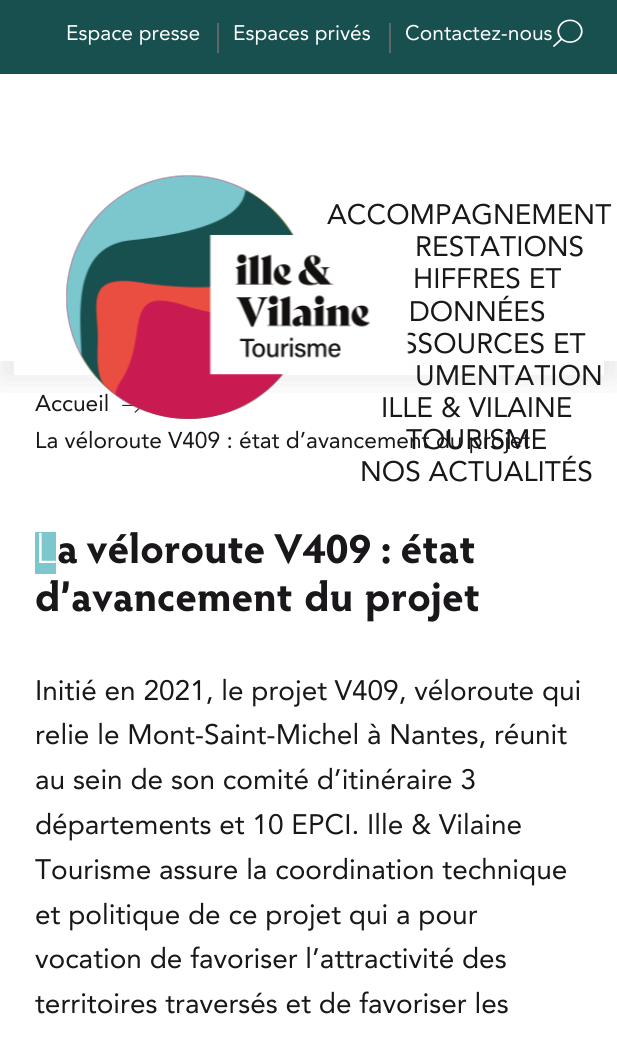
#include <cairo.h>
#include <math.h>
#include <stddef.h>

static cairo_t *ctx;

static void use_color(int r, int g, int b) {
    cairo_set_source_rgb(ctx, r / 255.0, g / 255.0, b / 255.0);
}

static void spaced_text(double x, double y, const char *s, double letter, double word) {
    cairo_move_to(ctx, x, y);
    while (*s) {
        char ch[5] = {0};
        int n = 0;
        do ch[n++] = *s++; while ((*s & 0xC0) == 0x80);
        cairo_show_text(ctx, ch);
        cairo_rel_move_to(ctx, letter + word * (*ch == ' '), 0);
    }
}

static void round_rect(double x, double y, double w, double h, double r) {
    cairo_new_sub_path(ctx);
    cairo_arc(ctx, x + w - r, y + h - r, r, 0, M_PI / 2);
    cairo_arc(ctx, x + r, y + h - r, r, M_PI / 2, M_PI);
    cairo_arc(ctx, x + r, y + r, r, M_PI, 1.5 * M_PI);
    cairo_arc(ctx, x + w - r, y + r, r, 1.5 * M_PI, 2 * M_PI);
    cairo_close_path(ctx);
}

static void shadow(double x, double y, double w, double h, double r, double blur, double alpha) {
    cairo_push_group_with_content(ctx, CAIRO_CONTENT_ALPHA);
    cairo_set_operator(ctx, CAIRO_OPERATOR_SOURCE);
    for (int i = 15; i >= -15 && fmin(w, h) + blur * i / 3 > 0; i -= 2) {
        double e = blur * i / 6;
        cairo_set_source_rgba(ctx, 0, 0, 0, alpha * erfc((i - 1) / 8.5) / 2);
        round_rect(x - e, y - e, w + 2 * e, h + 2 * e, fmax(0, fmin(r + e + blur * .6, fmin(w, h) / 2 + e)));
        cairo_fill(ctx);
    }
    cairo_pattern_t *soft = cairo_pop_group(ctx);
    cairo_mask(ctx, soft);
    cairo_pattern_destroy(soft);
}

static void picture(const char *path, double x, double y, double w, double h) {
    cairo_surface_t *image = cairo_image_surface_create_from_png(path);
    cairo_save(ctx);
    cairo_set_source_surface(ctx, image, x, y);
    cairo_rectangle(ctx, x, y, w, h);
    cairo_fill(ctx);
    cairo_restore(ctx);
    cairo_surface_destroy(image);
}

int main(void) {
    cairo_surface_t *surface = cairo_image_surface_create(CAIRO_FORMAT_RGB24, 617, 1050);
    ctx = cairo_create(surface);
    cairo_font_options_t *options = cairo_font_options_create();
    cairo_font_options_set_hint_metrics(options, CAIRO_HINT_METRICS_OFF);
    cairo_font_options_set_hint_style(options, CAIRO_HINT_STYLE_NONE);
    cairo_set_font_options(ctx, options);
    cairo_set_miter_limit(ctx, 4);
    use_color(255, 255, 255);
    cairo_paint(ctx);
    picture("img4.png", 122, 404, 19, 9);
    cairo_save(ctx);
    cairo_rectangle(ctx, 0, 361, 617, 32);
    cairo_clip(ctx);
    use_color(26, 23, 27);
    shadow(0, 18, 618, 360, 0, 17.5, 0.1);
    cairo_restore(ctx);
    use_color(24, 80, 80);
    cairo_rectangle(ctx, 0, 0, 617, 74);
    cairo_fill(ctx);
    cairo_select_font_face(ctx, "Avenir", CAIRO_FONT_SLANT_NORMAL, CAIRO_FONT_WEIGHT_NORMAL);
    cairo_set_font_size(ctx, 21);
    use_color(254, 254, 254);
    cairo_move_to(ctx, 66, 40);
    cairo_show_text(ctx, "Espace presse");
    use_color(92, 103, 102);
    cairo_rectangle(ctx, 217, 23, 2, 30);
    cairo_fill(ctx);
    use_color(254, 254, 254);
    cairo_move_to(ctx, 233, 40);
    cairo_show_text(ctx, "Espaces privés");
    use_color(92, 103, 102);
    cairo_rectangle(ctx, 389, 23, 2, 30);
    cairo_fill(ctx);
    use_color(254, 254, 254);
    cairo_move_to(ctx, 405, 40);
    cairo_show_text(ctx, "Contactez-nous");
    picture("img1.png", 553, 19, 30, 28);
    cairo_rectangle(ctx, 0, 360, 617, 1);
    cairo_fill(ctx);
    cairo_rectangle(ctx, 14, 361, 590, 14);
    cairo_fill(ctx);
    cairo_set_font_size(ctx, 28);
    use_color(26, 23, 27);
    cairo_move_to(ctx, 327, 224);
    cairo_show_text(ctx, "ACCOMPAGNEMENT");
    cairo_move_to(ctx, 402, 353);
    cairo_show_text(ctx, "SSOURCES ET");
    cairo_move_to(ctx, 381, 417);
    cairo_show_text(ctx, "ILLE & VILAINE");
    cairo_set_font_size(ctx, 22.75);
    cairo_move_to(ctx, 35, 411);
    cairo_show_text(ctx, "Accueil");
    picture("img2.png", 66, 175, 343, 244);
    picture("img3.png", 66, 175, 343, 244);
    cairo_set_font_size(ctx, 28);
    cairo_move_to(ctx, 415, 256);
    cairo_show_text(ctx, "RESTATIONS");
    cairo_move_to(ctx, 413, 288);
    cairo_show_text(ctx, "HIFFRES ET");
    cairo_move_to(ctx, 409, 321);
    cairo_show_text(ctx, "DONNÉES");
    cairo_move_to(ctx, 415, 385);
    cairo_show_text(ctx, "UMENTATION");
    cairo_set_font_size(ctx, 22.75);
    cairo_move_to(ctx, 35, 448);
    cairo_show_text(ctx, "La véloroute V409 : état d’avancement du projet");
    cairo_set_font_size(ctx, 28);
    cairo_move_to(ctx, 406, 449);
    cairo_show_text(ctx, "TOURISME");
    cairo_move_to(ctx, 360, 481);
    cairo_show_text(ctx, "NOS ACTUALITÉS");
    use_color(124, 198, 205);
    cairo_rectangle(ctx, 35, 532, 21, 42);
    cairo_fill(ctx);
    cairo_select_font_face(ctx, "Noto Sans Light", CAIRO_FONT_SLANT_NORMAL, CAIRO_FONT_WEIGHT_NORMAL);
    cairo_set_font_size(ctx, 42);
    use_color(254, 254, 254);
    cairo_move_to(ctx, 35, 563);
    cairo_show_text(ctx, "L");
    cairo_select_font_face(ctx, "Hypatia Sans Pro", CAIRO_FONT_SLANT_NORMAL, CAIRO_FONT_WEIGHT_BOLD);
    use_color(26, 23, 27);
    cairo_move_to(ctx, 57, 563);
    cairo_show_text(ctx, "a véloroute V409 : état");
    spaced_text(35, 611, "d’avancement du projet", 0, 3);
    cairo_select_font_face(ctx, "Avenir", CAIRO_FONT_SLANT_NORMAL, CAIRO_FONT_WEIGHT_NORMAL);
    cairo_set_font_size(ctx, 28);
    cairo_move_to(ctx, 35, 700);
    cairo_show_text(ctx, "Initié en 2021, le projet V409, véloroute qui");
    cairo_move_to(ctx, 35, 744);
    cairo_show_text(ctx, "relie le Mont-Saint-Michel à Nantes, réunit");
    cairo_move_to(ctx, 35, 789);
    cairo_show_text(ctx, "au sein de son comité d’itinéraire 3");
    cairo_move_to(ctx, 35, 834);
    cairo_show_text(ctx, "départements et 10 EPCI. Ille & Vilaine");
    cairo_move_to(ctx, 35, 879);
    cairo_show_text(ctx, "Tourisme assure la coordination technique");
    cairo_move_to(ctx, 35, 924);
    cairo_show_text(ctx, "et politique de ce projet qui a pour");
    cairo_move_to(ctx, 35, 968);
    cairo_show_text(ctx, "vocation de favoriser l’attractivité des");
    cairo_move_to(ctx, 35, 1013);
    cairo_show_text(ctx, "territoires traversés et de favoriser les");
    cairo_surface_write_to_png(surface, "result.png");
    cairo_font_options_destroy(options);
    cairo_destroy(ctx);
    cairo_surface_destroy(surface);
    return 0;
}
